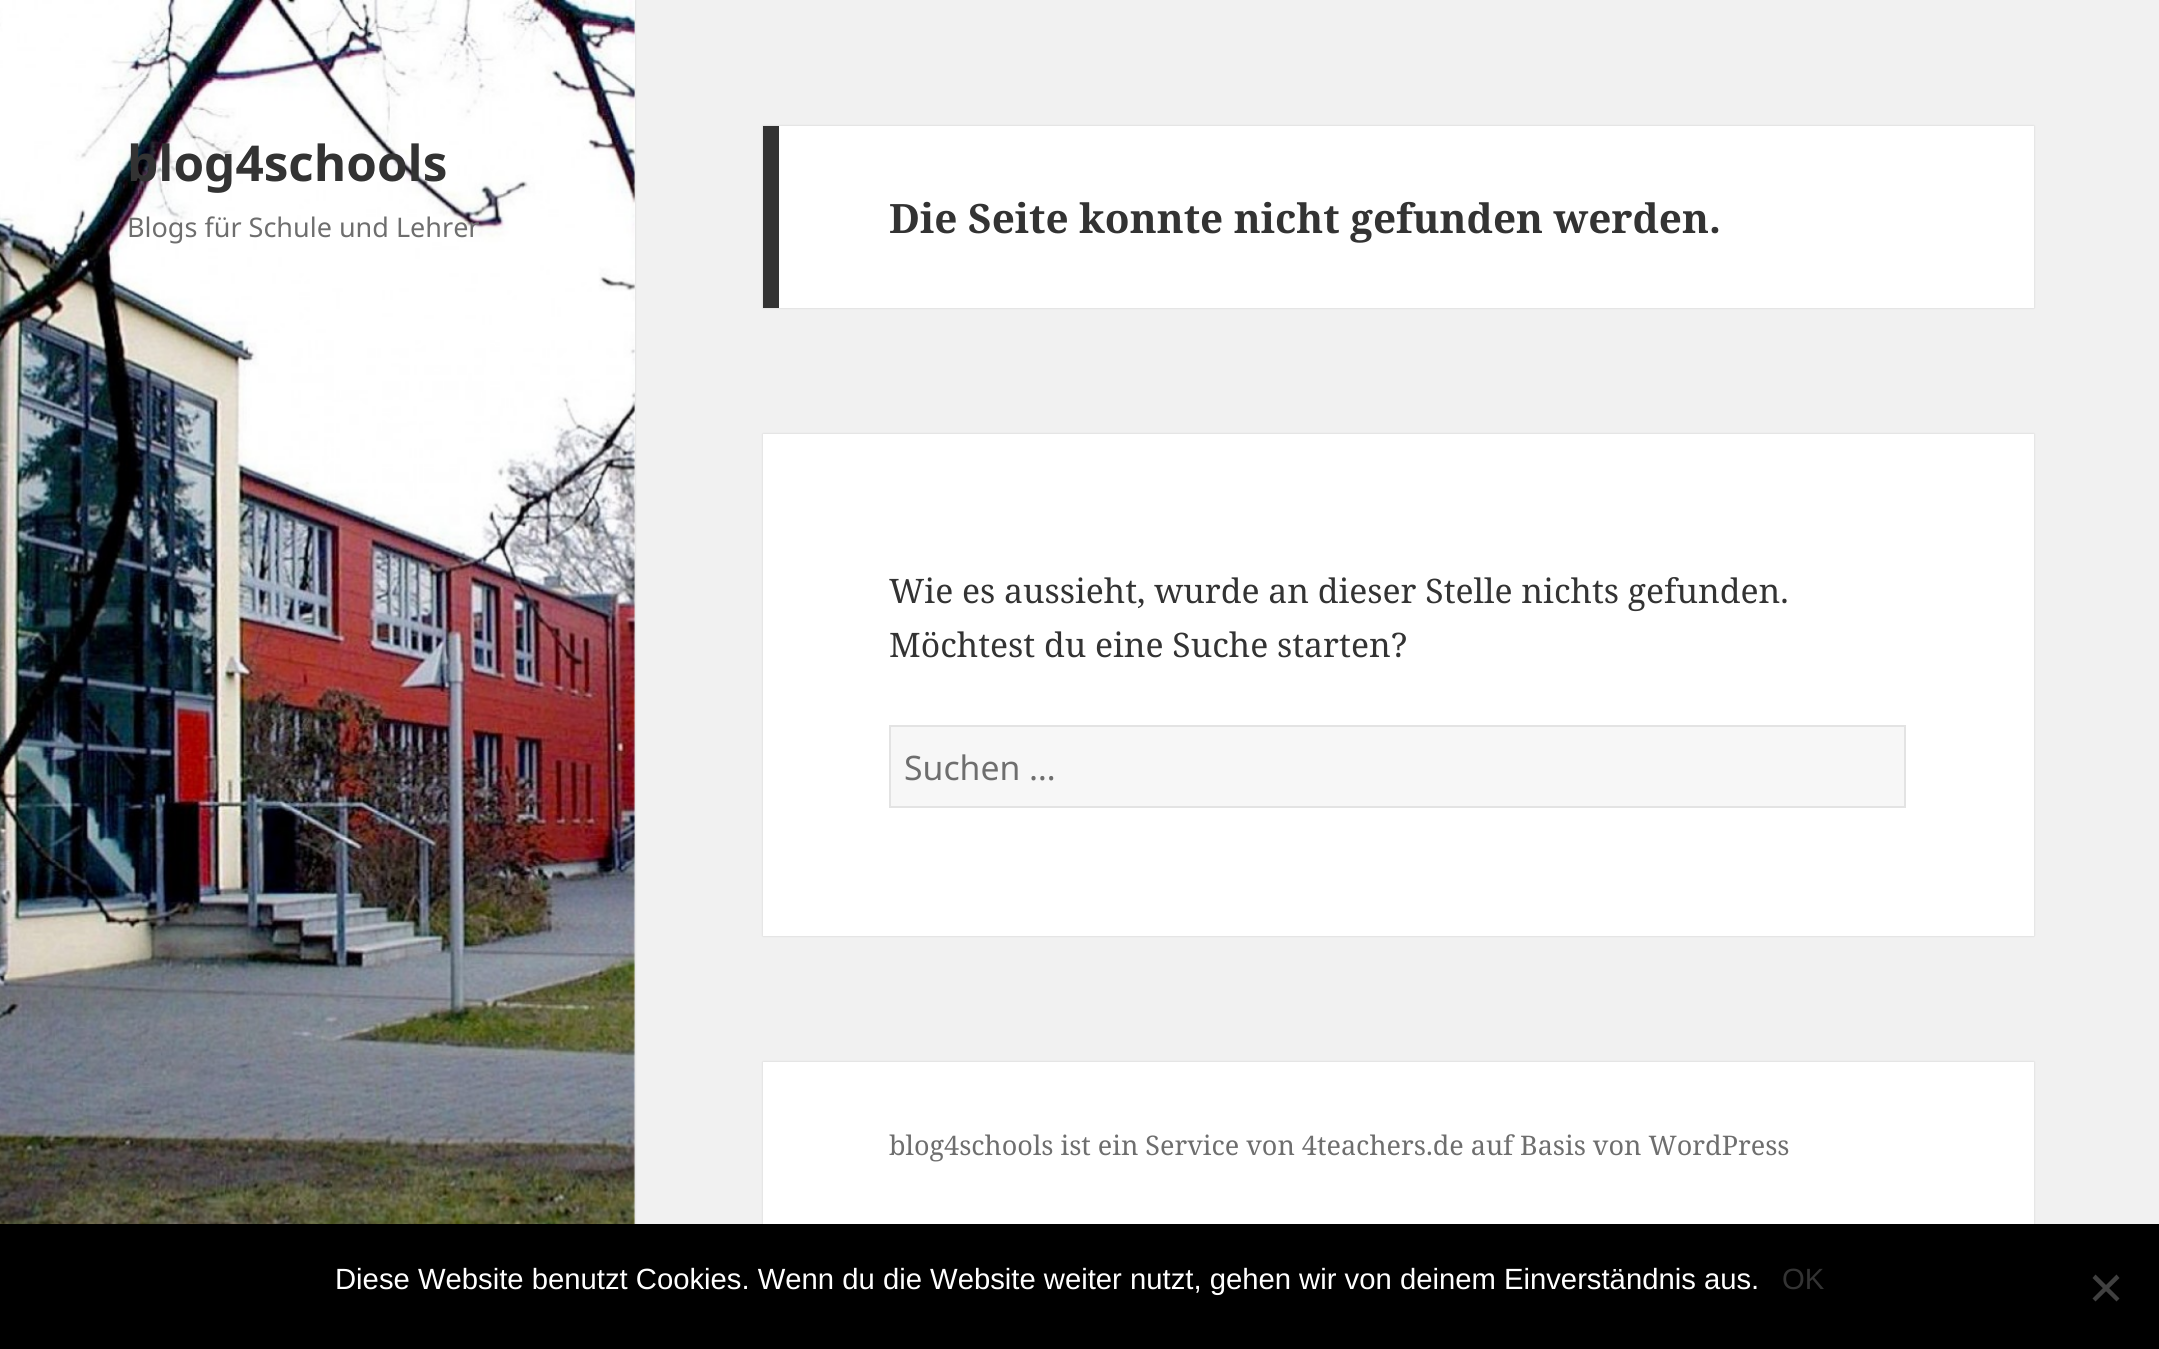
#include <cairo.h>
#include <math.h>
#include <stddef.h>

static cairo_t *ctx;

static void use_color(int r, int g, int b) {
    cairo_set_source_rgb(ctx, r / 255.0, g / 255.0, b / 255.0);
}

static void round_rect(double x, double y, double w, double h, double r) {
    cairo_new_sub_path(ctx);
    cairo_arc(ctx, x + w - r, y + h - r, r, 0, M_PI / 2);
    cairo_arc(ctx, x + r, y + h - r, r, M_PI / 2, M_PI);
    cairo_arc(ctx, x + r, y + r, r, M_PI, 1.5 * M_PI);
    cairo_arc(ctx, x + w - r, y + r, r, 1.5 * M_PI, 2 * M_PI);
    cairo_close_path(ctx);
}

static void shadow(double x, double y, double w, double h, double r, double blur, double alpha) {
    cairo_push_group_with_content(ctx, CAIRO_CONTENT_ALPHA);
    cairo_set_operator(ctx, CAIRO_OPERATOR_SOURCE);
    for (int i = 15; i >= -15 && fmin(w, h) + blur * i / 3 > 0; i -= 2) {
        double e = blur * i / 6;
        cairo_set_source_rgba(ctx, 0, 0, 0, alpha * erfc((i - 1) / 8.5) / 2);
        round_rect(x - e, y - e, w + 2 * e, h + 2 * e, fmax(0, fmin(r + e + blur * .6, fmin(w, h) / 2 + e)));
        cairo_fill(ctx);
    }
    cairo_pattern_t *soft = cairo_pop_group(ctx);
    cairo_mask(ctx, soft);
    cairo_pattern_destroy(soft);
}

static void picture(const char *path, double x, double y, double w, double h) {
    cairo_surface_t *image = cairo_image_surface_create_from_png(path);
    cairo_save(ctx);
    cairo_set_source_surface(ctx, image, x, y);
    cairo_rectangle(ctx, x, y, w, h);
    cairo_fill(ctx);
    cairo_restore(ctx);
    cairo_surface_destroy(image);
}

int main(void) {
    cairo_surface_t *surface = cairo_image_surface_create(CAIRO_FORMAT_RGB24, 2159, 1349);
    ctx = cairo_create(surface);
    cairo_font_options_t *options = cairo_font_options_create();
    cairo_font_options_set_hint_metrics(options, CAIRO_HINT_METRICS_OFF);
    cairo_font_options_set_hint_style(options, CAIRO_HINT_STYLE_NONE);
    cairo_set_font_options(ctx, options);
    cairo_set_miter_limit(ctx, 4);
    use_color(241, 241, 241);
    cairo_paint(ctx);
    use_color(0, 0, 0);
    shadow(0, 0, 635, 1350, 0, 1, 0.15);
    use_color(255, 255, 255);
    cairo_rectangle(ctx, 633, 0, 2, 1224);
    cairo_fill(ctx);
    picture("img1.png", 0, 0, 635, 1224);
    cairo_select_font_face(ctx, "Noto Sans", CAIRO_FONT_SLANT_NORMAL, CAIRO_FONT_WEIGHT_BOLD);
    cairo_set_font_size(ctx, 49.5);
    use_color(51, 51, 51);
    cairo_move_to(ctx, 127, 181);
    cairo_show_text(ctx, "blog4schools");
    cairo_select_font_face(ctx, "Noto Sans", CAIRO_FONT_SLANT_NORMAL, CAIRO_FONT_WEIGHT_NORMAL);
    cairo_set_font_size(ctx, 27);
    use_color(110, 110, 110);
    cairo_move_to(ctx, 127, 237);
    cairo_show_text(ctx, "Blogs für Schule und Lehrer");
    use_color(0, 0, 0);
    shadow(763, 126, 1271, 182, 0, 1, 0.15);
    use_color(255, 255, 255);
    cairo_rectangle(ctx, 779, 126, 1255, 182);
    cairo_fill(ctx);
    use_color(51, 51, 51);
    cairo_rectangle(ctx, 763, 126, 16, 182);
    cairo_fill(ctx);
    cairo_select_font_face(ctx, "Noto Serif", CAIRO_FONT_SLANT_NORMAL, CAIRO_FONT_WEIGHT_BOLD);
    cairo_set_font_size(ctx, 40.5);
    cairo_move_to(ctx, 889, 233);
    cairo_show_text(ctx, "Die Seite konnte nicht gefunden werden.");
    use_color(0, 0, 0);
    shadow(763, 434, 1271, 502, 0, 1, 0.15);
    use_color(255, 255, 255);
    cairo_rectangle(ctx, 763, 434, 1271, 502);
    cairo_fill(ctx);
    cairo_select_font_face(ctx, "Noto Serif", CAIRO_FONT_SLANT_NORMAL, CAIRO_FONT_WEIGHT_NORMAL);
    cairo_set_font_size(ctx, 33.75);
    use_color(51, 51, 51);
    cairo_move_to(ctx, 889, 603);
    cairo_show_text(ctx, "Wie es aussieht, wurde an dieser Stelle nichts gefunden.");
    cairo_move_to(ctx, 889, 657);
    cairo_show_text(ctx, "Möchtest du eine Suche starten?");
    use_color(247, 247, 247);
    cairo_rectangle(ctx, 890, 726, 1015, 81);
    cairo_fill_preserve(ctx);
    use_color(227, 227, 227);
    cairo_stroke(ctx);
    cairo_select_font_face(ctx, "Noto Sans", CAIRO_FONT_SLANT_NORMAL, CAIRO_FONT_WEIGHT_NORMAL);
    use_color(110, 110, 110);
    cairo_move_to(ctx, 904, 780);
    cairo_show_text(ctx, "Suchen …");
    use_color(0, 0, 0);
    shadow(763, 1062, 1271, 169, 0, 1, 0.15);
    use_color(255, 255, 255);
    cairo_rectangle(ctx, 763, 1062, 1271, 162);
    cairo_fill(ctx);
    cairo_select_font_face(ctx, "Noto Serif", CAIRO_FONT_SLANT_NORMAL, CAIRO_FONT_WEIGHT_NORMAL);
    cairo_set_font_size(ctx, 27);
    use_color(110, 110, 110);
    cairo_move_to(ctx, 889, 1155);
    cairo_show_text(ctx, "blog4schools ist ein Service von 4teachers.de auf Basis von WordPress");
    use_color(0, 0, 0);
    cairo_rectangle(ctx, 0, 1224, 2159, 125);
    cairo_fill(ctx);
    cairo_select_font_face(ctx, "Liberation Sans", CAIRO_FONT_SLANT_NORMAL, CAIRO_FONT_WEIGHT_NORMAL);
    cairo_set_font_size(ctx, 29.25);
    use_color(255, 255, 255);
    cairo_move_to(ctx, 335, 1289);
    cairo_show_text(ctx, "Diese Website benutzt Cookies. Wenn du die Website weiter nutzt, gehen wir von deinem Einverständnis aus.");
    use_color(51, 51, 51);
    cairo_move_to(ctx, 1782, 1289);
    cairo_show_text(ctx, "OK");
    use_color(64, 64, 64);
    cairo_new_path(ctx);
    cairo_move_to(ctx, 2116.5, 1274.5);
    cairo_line_to(ctx, 2119.5, 1278);
    cairo_line_to(ctx, 2095.5, 1301.5);
    cairo_line_to(ctx, 2092.5, 1298.5);
    cairo_close_path(ctx);
    cairo_fill(ctx);
    cairo_new_path(ctx);
    cairo_move_to(ctx, 2092.5, 1278);
    cairo_line_to(ctx, 2095.5, 1274.5);
    cairo_line_to(ctx, 2119.5, 1298.5);
    cairo_line_to(ctx, 2116.5, 1301.5);
    cairo_close_path(ctx);
    cairo_fill(ctx);
    cairo_surface_write_to_png(surface, "result.png");
    cairo_font_options_destroy(options);
    cairo_destroy(ctx);
    cairo_surface_destroy(surface);
    return 0;
}
